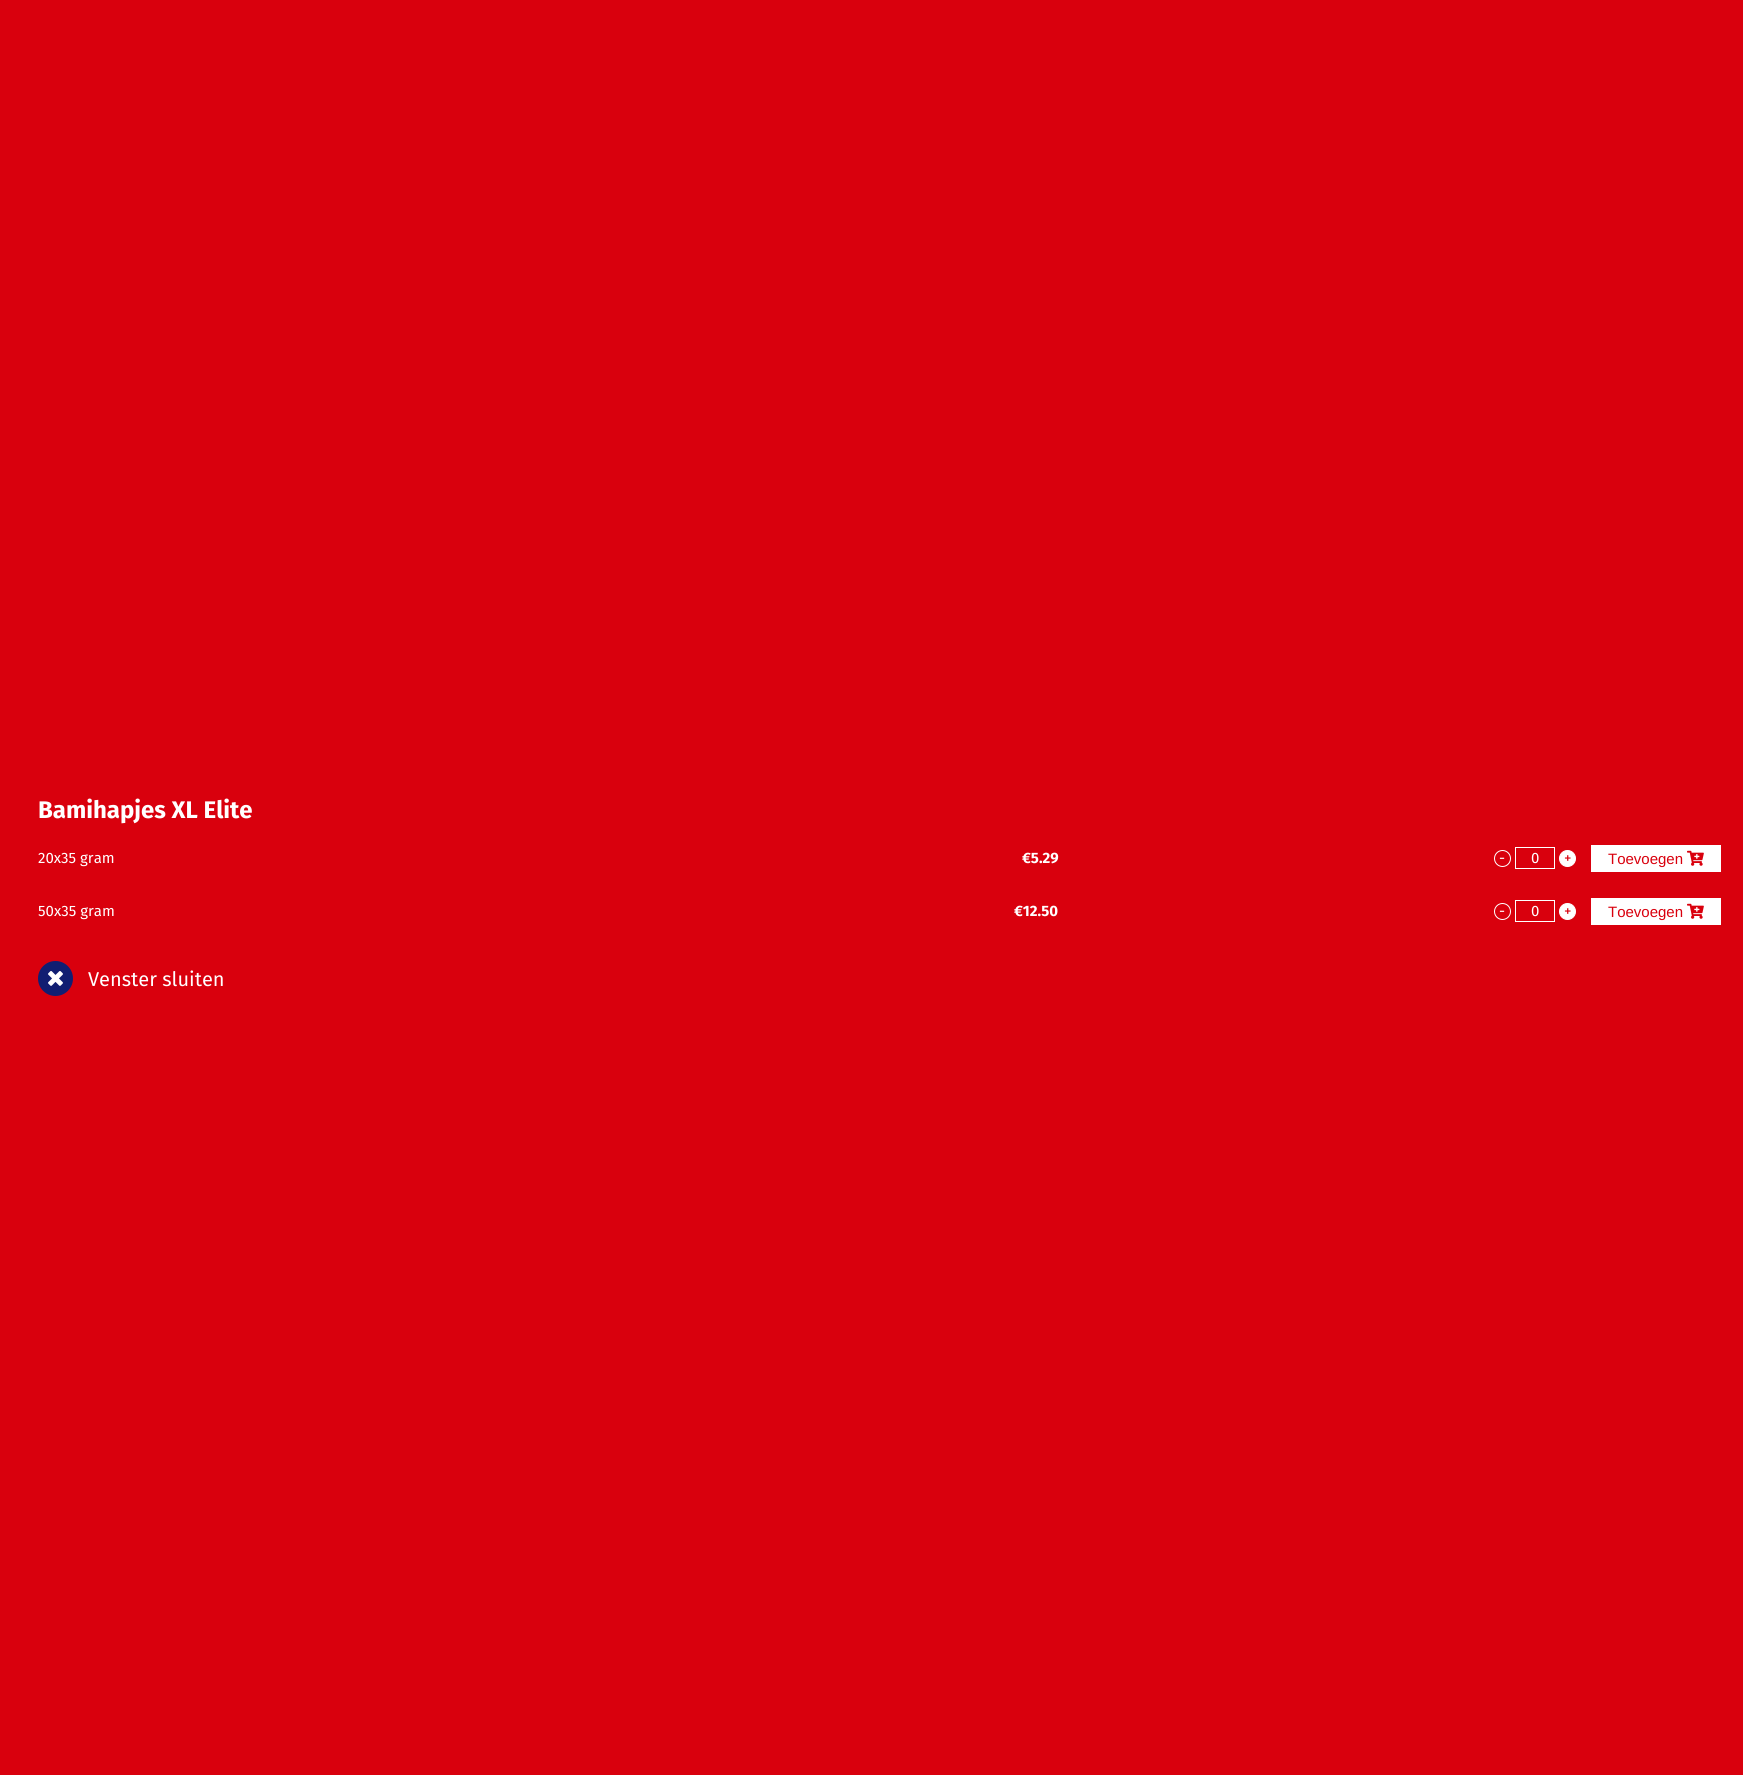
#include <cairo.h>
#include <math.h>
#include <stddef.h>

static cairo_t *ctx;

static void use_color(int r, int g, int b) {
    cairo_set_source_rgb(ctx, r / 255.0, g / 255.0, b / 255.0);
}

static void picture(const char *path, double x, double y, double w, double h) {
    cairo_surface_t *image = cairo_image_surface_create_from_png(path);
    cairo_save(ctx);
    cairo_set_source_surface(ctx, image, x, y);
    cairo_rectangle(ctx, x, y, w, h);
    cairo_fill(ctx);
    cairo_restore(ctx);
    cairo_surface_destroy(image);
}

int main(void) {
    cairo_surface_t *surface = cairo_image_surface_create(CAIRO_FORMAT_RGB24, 1743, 1775);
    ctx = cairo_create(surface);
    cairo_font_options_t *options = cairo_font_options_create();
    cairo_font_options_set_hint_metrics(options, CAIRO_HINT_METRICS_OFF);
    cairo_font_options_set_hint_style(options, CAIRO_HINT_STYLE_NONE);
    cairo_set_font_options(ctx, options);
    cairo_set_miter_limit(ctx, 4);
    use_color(217, 0, 13);
    cairo_paint(ctx);
    cairo_select_font_face(ctx, "Fira Sans", CAIRO_FONT_SLANT_NORMAL, CAIRO_FONT_WEIGHT_BOLD);
    cairo_set_font_size(ctx, 24);
    use_color(255, 255, 255);
    cairo_move_to(ctx, 38, 818);
    cairo_show_text(ctx, "Bamihapjes XL Elite");
    cairo_select_font_face(ctx, "Fira Sans", CAIRO_FONT_SLANT_NORMAL, CAIRO_FONT_WEIGHT_NORMAL);
    cairo_set_font_size(ctx, 15);
    cairo_move_to(ctx, 38, 863);
    cairo_show_text(ctx, "20x35 gram");
    cairo_select_font_face(ctx, "Fira Sans", CAIRO_FONT_SLANT_NORMAL, CAIRO_FONT_WEIGHT_BOLD);
    cairo_move_to(ctx, 1022, 863);
    cairo_show_text(ctx, "€5.29");
    cairo_new_path(ctx);
    cairo_arc(ctx, 1502.5, 858.5, 8, 0, 2 * M_PI);
    cairo_set_line_width(ctx, 1);
    cairo_stroke(ctx);
    cairo_select_font_face(ctx, "Fira Sans", CAIRO_FONT_SLANT_NORMAL, CAIRO_FONT_WEIGHT_NORMAL);
    cairo_move_to(ctx, 1499, 863);
    cairo_show_text(ctx, "-");
    cairo_rectangle(ctx, 1515.5, 847.5, 39, 21);
    cairo_stroke(ctx);
    cairo_move_to(ctx, 1531, 863);
    cairo_show_text(ctx, "0");
    cairo_new_path(ctx);
    cairo_arc(ctx, 1567.5, 858.5, 8, 0, 2 * M_PI);
    cairo_fill_preserve(ctx);
    cairo_stroke(ctx);
    use_color(217, 0, 13);
    cairo_move_to(ctx, 1564, 863);
    cairo_show_text(ctx, "+");
    use_color(255, 255, 255);
    cairo_rectangle(ctx, 1591, 845, 130, 27);
    cairo_fill(ctx);
    cairo_select_font_face(ctx, "Liberation Sans", CAIRO_FONT_SLANT_NORMAL, CAIRO_FONT_WEIGHT_NORMAL);
    use_color(217, 0, 13);
    cairo_move_to(ctx, 1608, 864);
    cairo_show_text(ctx, "Toevoegen");
    picture("img1.png", 1687, 850, 17, 16);
    cairo_select_font_face(ctx, "Fira Sans", CAIRO_FONT_SLANT_NORMAL, CAIRO_FONT_WEIGHT_NORMAL);
    use_color(255, 255, 255);
    cairo_move_to(ctx, 38, 916);
    cairo_show_text(ctx, "50x35 gram");
    cairo_select_font_face(ctx, "Fira Sans", CAIRO_FONT_SLANT_NORMAL, CAIRO_FONT_WEIGHT_BOLD);
    cairo_move_to(ctx, 1014, 916);
    cairo_show_text(ctx, "€12.50");
    cairo_new_path(ctx);
    cairo_arc(ctx, 1502.5, 911.5, 8, 0, 2 * M_PI);
    cairo_stroke(ctx);
    cairo_select_font_face(ctx, "Fira Sans", CAIRO_FONT_SLANT_NORMAL, CAIRO_FONT_WEIGHT_NORMAL);
    cairo_move_to(ctx, 1499, 916);
    cairo_show_text(ctx, "-");
    cairo_rectangle(ctx, 1515.5, 900.5, 39, 21);
    cairo_stroke(ctx);
    cairo_move_to(ctx, 1531, 916);
    cairo_show_text(ctx, "0");
    cairo_new_path(ctx);
    cairo_arc(ctx, 1567.5, 911.5, 8, 0, 2 * M_PI);
    cairo_fill_preserve(ctx);
    cairo_stroke(ctx);
    use_color(217, 0, 13);
    cairo_move_to(ctx, 1564, 916);
    cairo_show_text(ctx, "+");
    use_color(255, 255, 255);
    cairo_rectangle(ctx, 1591, 898, 130, 27);
    cairo_fill(ctx);
    cairo_select_font_face(ctx, "Liberation Sans", CAIRO_FONT_SLANT_NORMAL, CAIRO_FONT_WEIGHT_NORMAL);
    use_color(217, 0, 13);
    cairo_move_to(ctx, 1608, 917);
    cairo_show_text(ctx, "Toevoegen");
    picture("img1.png", 1687, 903, 17, 16);
    use_color(17, 30, 114);
    cairo_arc(ctx, 55.5, 978.5, 17.5, 0, 2 * M_PI);
    cairo_fill(ctx);
    picture("img2.png", 48, 971, 15, 15);
    cairo_select_font_face(ctx, "Fira Sans", CAIRO_FONT_SLANT_NORMAL, CAIRO_FONT_WEIGHT_NORMAL);
    cairo_set_font_size(ctx, 20);
    use_color(255, 255, 255);
    cairo_move_to(ctx, 88, 986);
    cairo_show_text(ctx, "Venster sluiten");
    cairo_surface_write_to_png(surface, "result.png");
    cairo_font_options_destroy(options);
    cairo_destroy(ctx);
    cairo_surface_destroy(surface);
    return 0;
}
